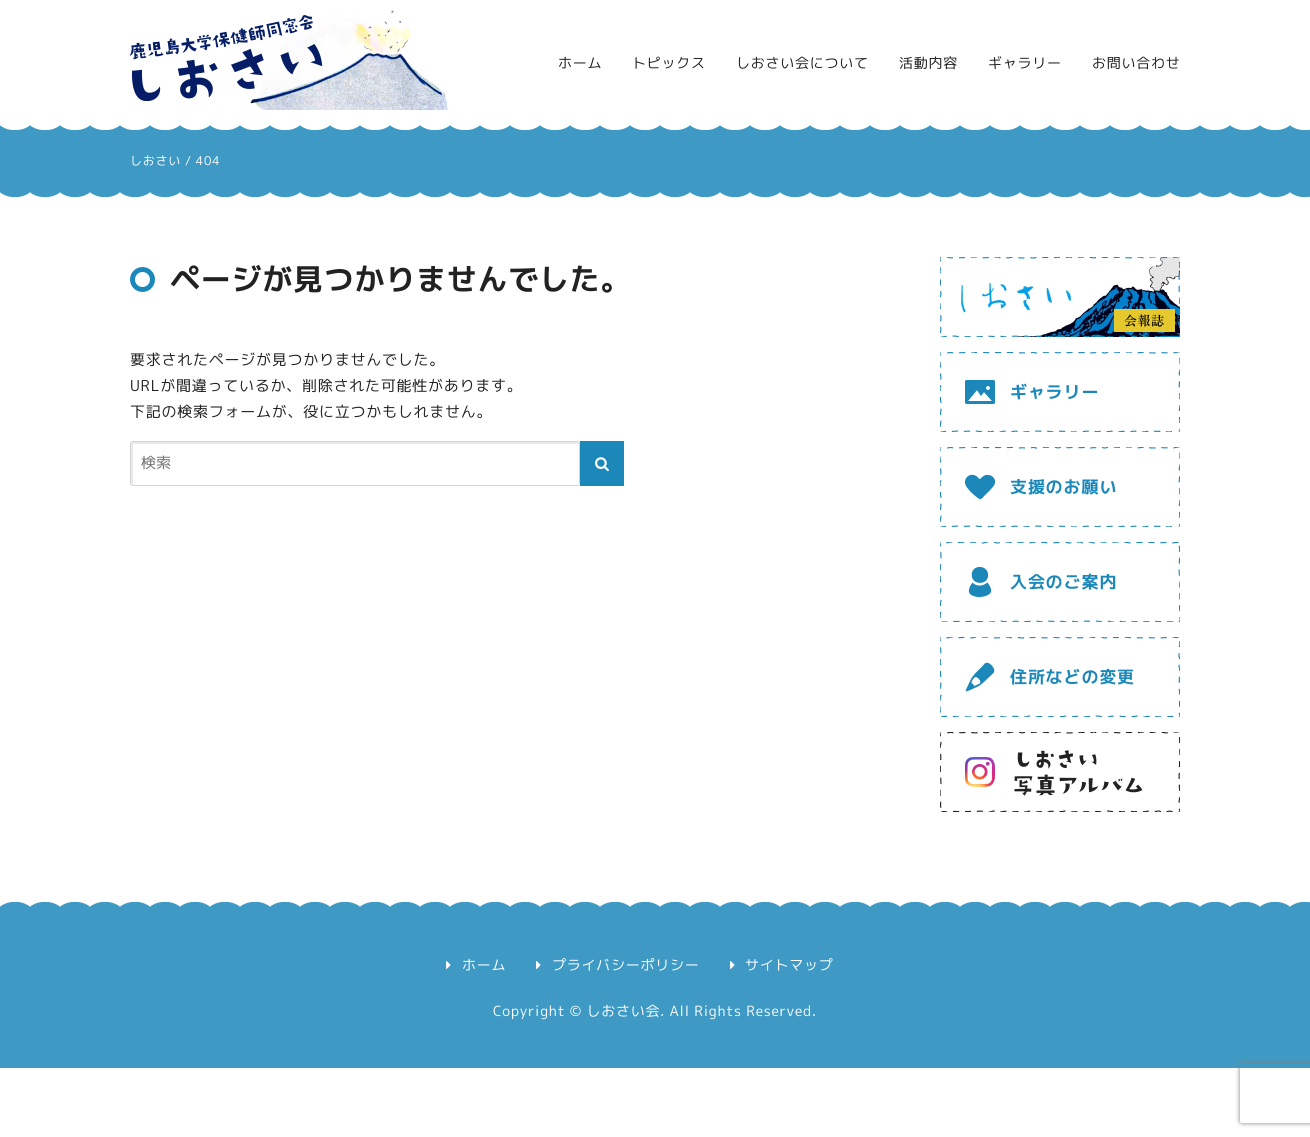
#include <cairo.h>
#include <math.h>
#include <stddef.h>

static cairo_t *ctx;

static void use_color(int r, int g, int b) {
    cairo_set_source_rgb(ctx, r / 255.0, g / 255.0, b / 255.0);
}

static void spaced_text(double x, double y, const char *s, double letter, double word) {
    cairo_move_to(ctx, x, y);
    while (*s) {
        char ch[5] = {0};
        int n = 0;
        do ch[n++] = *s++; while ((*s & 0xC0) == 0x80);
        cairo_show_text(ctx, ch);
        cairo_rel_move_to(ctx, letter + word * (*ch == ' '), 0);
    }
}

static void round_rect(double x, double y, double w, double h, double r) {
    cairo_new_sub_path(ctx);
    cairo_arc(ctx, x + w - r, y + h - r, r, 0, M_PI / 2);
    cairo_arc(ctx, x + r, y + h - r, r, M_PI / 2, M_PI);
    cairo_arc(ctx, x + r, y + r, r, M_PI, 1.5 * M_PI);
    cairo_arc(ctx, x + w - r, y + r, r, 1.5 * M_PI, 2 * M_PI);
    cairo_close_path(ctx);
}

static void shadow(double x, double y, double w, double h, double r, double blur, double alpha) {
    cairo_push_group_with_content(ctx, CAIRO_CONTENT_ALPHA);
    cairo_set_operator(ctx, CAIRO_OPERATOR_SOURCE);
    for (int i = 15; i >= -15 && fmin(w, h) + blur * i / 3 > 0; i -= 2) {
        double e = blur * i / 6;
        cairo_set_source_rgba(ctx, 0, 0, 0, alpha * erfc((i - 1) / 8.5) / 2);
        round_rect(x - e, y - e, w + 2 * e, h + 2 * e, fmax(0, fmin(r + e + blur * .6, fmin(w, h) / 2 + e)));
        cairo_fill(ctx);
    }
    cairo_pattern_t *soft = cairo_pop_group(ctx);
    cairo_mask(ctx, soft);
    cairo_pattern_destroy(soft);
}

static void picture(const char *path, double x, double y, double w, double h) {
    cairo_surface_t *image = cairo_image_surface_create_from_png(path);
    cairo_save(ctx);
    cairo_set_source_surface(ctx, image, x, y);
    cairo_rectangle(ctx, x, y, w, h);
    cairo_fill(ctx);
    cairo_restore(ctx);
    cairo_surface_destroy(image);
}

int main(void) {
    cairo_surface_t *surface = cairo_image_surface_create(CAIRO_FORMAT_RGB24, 1310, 1137);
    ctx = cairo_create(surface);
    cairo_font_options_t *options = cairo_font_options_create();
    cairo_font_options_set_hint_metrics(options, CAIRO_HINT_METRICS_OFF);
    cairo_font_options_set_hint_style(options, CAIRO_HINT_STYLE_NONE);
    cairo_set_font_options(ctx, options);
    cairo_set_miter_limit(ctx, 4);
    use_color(255, 255, 255);
    cairo_paint(ctx);
    picture("img1.png", 130, 10, 318, 100);
    cairo_select_font_face(ctx, "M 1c", CAIRO_FONT_SLANT_NORMAL, CAIRO_FONT_WEIGHT_NORMAL);
    cairo_set_font_size(ctx, 14);
    use_color(34, 34, 34);
    spaced_text(558, 68, "ホーム", 0.75, 0);
    spaced_text(632, 68, "トピックス", 0.75, 0);
    spaced_text(736, 68, "しおさい会について", 0.75, 0);
    spaced_text(899, 68, "活動内容", 0.75, 0);
    spaced_text(988, 68, "ギャラリー", 0.75, 0);
    spaced_text(1092, 68, "お問い合わせ", 0.75, 0);
    use_color(62, 154, 196);
    cairo_rectangle(ctx, 0, 125, 1310, 67);
    cairo_fill(ctx);
    picture("img2.png", 0, 125, 1310, 5);
    cairo_set_font_size(ctx, 12);
    use_color(255, 255, 255);
    spaced_text(130, 165, "しおさい / 404", 0.75, 0);
    picture("img3.png", 0, 192, 1310, 5);
    use_color(28, 136, 186);
    cairo_arc(ctx, 142.5, 279.5, 12.5, 0, 2 * M_PI);
    cairo_fill(ctx);
    cairo_select_font_face(ctx, "M 1c", CAIRO_FONT_SLANT_NORMAL, CAIRO_FONT_WEIGHT_BOLD);
    cairo_set_font_size(ctx, 30);
    use_color(34, 34, 34);
    spaced_text(170, 290, "ページが見つかりませんでした。", 0.75, 0);
    use_color(255, 255, 255);
    cairo_new_path(ctx);
    cairo_arc(ctx, 142.5, 279.5, 7.5, 0, 2 * M_PI);
    cairo_fill(ctx);
    cairo_select_font_face(ctx, "M 1c", CAIRO_FONT_SLANT_NORMAL, CAIRO_FONT_WEIGHT_NORMAL);
    cairo_set_font_size(ctx, 15);
    use_color(34, 34, 34);
    spaced_text(130, 365, "要求されたページが見つかりませんでした。", 0.75, 0);
    spaced_text(130, 391, "URLが間違っているか、削除された可能性があります。", 0.75, 0);
    spaced_text(130, 417, "下記の検索フォームが、役に立つかもしれません。", 0.75, 0);
    use_color(235, 235, 235);
    cairo_new_path(ctx);
    cairo_move_to(ctx, 135, 444);
    cairo_line_to(ctx, 579, 444);
    cairo_curve_to(ctx, 579, 443, 578, 442, 577, 442);
    cairo_line_to(ctx, 133, 442);
    cairo_curve_to(ctx, 132, 442, 131, 443, 131, 444);
    cairo_line_to(ctx, 131, 483);
    cairo_curve_to(ctx, 131, 484, 132, 485, 133, 485);
    cairo_line_to(ctx, 133, 446);
    cairo_curve_to(ctx, 133, 445, 134, 444, 135, 444);
    cairo_close_path(ctx);
    cairo_fill(ctx);
    round_rect(130.5, 441.5, 449, 44, 2.5);
    use_color(211, 211, 211);
    cairo_set_line_width(ctx, 1);
    cairo_stroke(ctx);
    use_color(117, 117, 117);
    cairo_move_to(ctx, 141, 468);
    cairo_show_text(ctx, "検索");
    use_color(28, 136, 186);
    cairo_rectangle(ctx, 580, 441, 44, 45);
    cairo_fill(ctx);
    picture("img4.png", 595, 457, 14, 15);
    picture("img5.png", 940, 257, 240, 80);
    picture("img6.png", 940, 352, 240, 80);
    picture("img7.png", 940, 447, 240, 80);
    picture("img8.png", 940, 542, 240, 80);
    picture("img9.png", 940, 637, 240, 80);
    picture("img10.png", 940, 732, 240, 80);
    picture("img11.png", 0, 902, 1310, 5);
    use_color(62, 154, 196);
    cairo_rectangle(ctx, 0, 907, 1310, 161);
    cairo_fill(ctx);
    picture("img12.png", 446, 961, 5, 8);
    cairo_set_font_size(ctx, 14);
    use_color(255, 255, 255);
    spaced_text(462, 970, "ホーム", 0.75, 0);
    picture("img12.png", 536, 961, 5, 8);
    spaced_text(552, 970, "プライバシーポリシー", 0.75, 0);
    picture("img12.png", 730, 961, 5, 8);
    spaced_text(745, 970, "サイトマップ", 0.75, 0);
    spaced_text(493, 1016, "Copyright © しおさい会. All Rights Reserved.", 0.75, 0);
    cairo_save(ctx);
    cairo_set_fill_rule(ctx, CAIRO_FILL_RULE_EVEN_ODD);
    cairo_new_path(ctx);
    cairo_move_to(ctx, 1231, 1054);
    cairo_line_to(ctx, 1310, 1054);
    cairo_line_to(ctx, 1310, 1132);
    cairo_line_to(ctx, 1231, 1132);
    cairo_close_path(ctx);
    cairo_move_to(ctx, 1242, 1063);
    cairo_line_to(ctx, 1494, 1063);
    cairo_curve_to(ctx, 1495, 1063, 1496, 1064, 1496, 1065);
    cairo_line_to(ctx, 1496, 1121);
    cairo_curve_to(ctx, 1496, 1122, 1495, 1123, 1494, 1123);
    cairo_line_to(ctx, 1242, 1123);
    cairo_curve_to(ctx, 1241, 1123, 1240, 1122, 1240, 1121);
    cairo_line_to(ctx, 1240, 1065);
    cairo_curve_to(ctx, 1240, 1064, 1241, 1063, 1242, 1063);
    cairo_close_path(ctx);
    cairo_clip(ctx);
    use_color(128, 128, 128);
    shadow(1240, 1063, 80, 60, 2, 2.5, 1);
    cairo_restore(ctx);
    cairo_surface_write_to_png(surface, "result.png");
    cairo_font_options_destroy(options);
    cairo_destroy(ctx);
    cairo_surface_destroy(surface);
    return 0;
}
